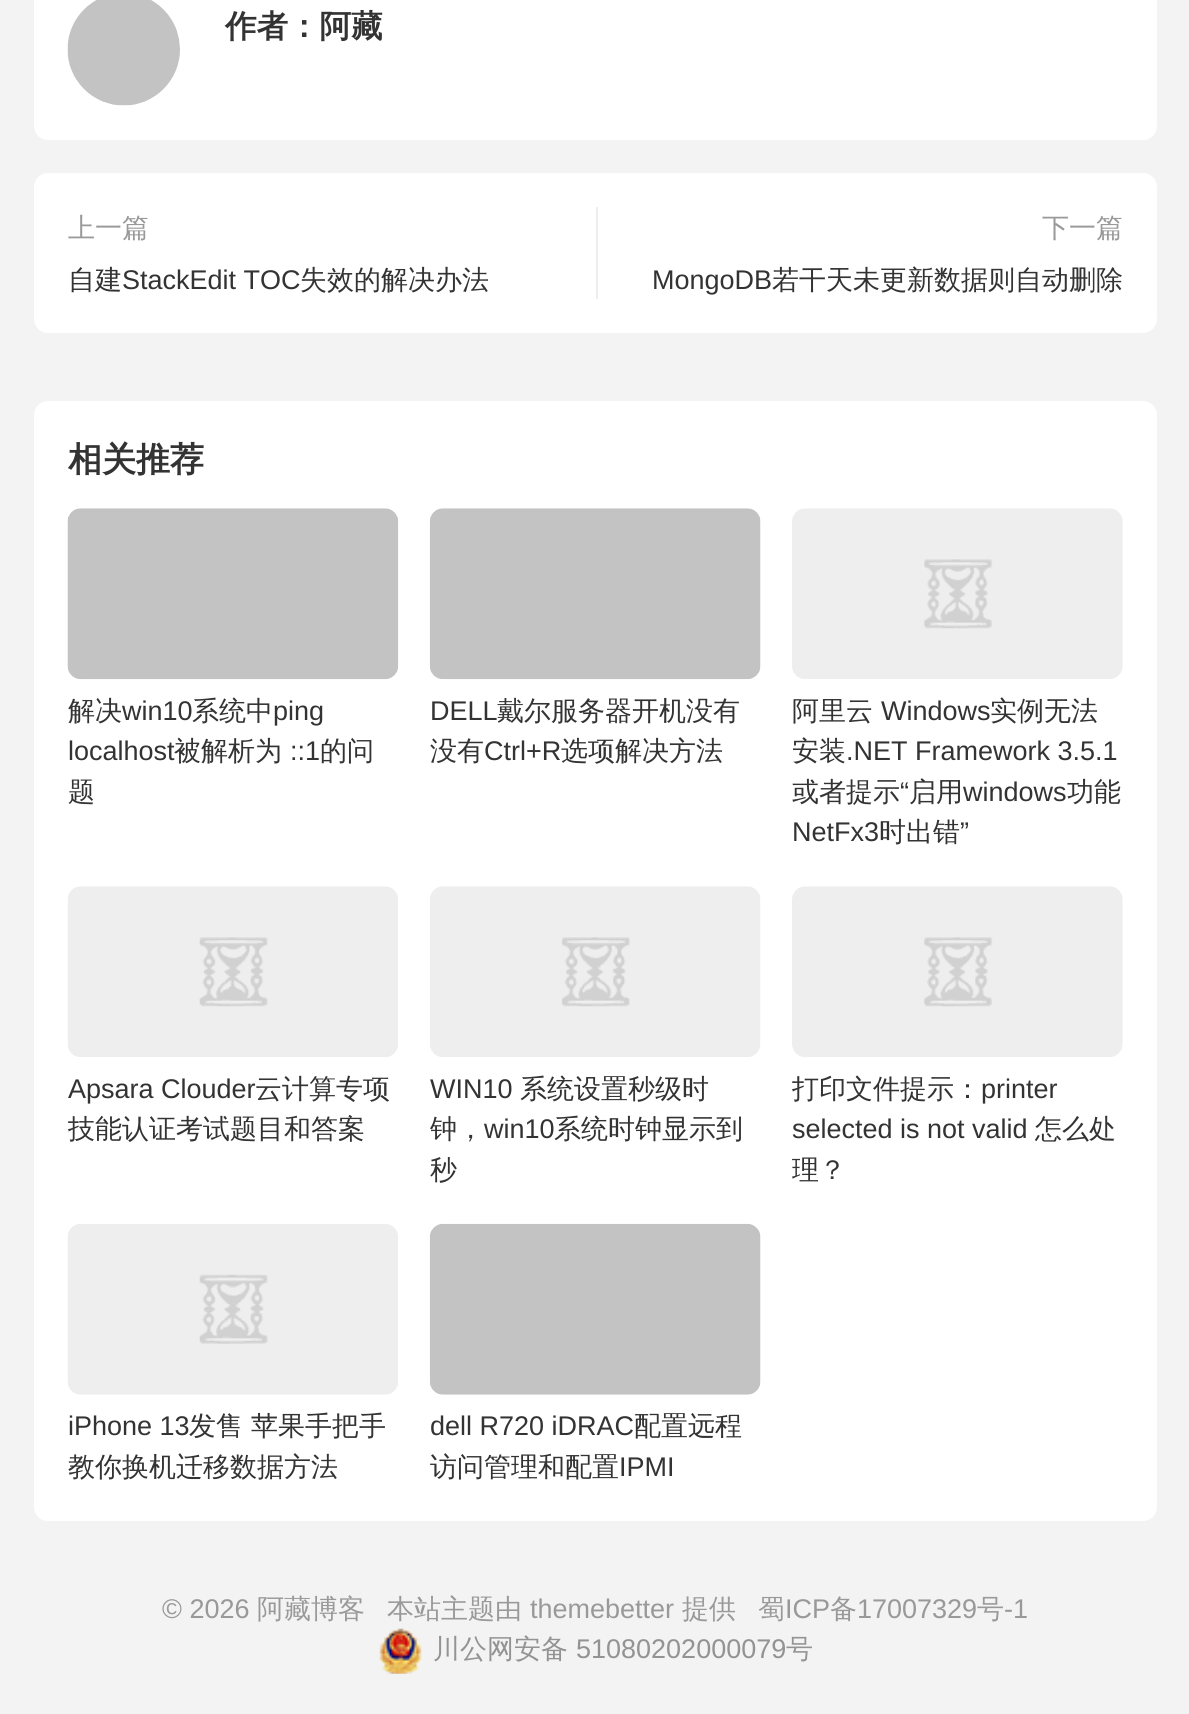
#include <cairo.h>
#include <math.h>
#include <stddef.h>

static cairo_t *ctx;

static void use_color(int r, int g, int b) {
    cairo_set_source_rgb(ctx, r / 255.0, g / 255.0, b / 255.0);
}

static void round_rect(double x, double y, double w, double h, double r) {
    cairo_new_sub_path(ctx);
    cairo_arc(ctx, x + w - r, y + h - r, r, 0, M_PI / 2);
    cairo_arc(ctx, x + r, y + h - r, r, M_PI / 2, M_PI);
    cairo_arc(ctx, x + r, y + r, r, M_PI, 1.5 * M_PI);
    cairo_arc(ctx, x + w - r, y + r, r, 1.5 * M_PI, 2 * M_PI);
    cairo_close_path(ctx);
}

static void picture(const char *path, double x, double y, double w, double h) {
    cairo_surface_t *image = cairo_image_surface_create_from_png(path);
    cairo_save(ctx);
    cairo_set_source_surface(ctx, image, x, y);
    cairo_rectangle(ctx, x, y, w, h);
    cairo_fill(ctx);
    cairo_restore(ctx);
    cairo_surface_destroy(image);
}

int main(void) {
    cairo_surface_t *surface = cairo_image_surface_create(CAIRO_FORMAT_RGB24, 1189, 1714);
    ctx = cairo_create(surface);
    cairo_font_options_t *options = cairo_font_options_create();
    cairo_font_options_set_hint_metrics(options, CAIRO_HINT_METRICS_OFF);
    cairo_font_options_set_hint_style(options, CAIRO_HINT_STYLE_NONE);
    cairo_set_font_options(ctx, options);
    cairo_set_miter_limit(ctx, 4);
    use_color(243, 243, 243);
    cairo_paint(ctx);
    use_color(255, 255, 255);
    round_rect(34, -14, 1123, 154, 14);
    cairo_fill(ctx);
    picture("img1.png", 67, 0, 113, 106);
    cairo_select_font_face(ctx, "WenQuanYi Zen Hei", CAIRO_FONT_SLANT_NORMAL, CAIRO_FONT_WEIGHT_BOLD);
    cairo_set_font_size(ctx, 31.5);
    use_color(51, 51, 51);
    cairo_move_to(ctx, 225, 37);
    cairo_show_text(ctx, "作者：阿藏");
    use_color(255, 255, 255);
    round_rect(34, 173, 1123, 160, 14);
    cairo_fill(ctx);
    cairo_select_font_face(ctx, "WenQuanYi Zen Hei Medium", CAIRO_FONT_SLANT_NORMAL, CAIRO_FONT_WEIGHT_NORMAL);
    cairo_set_font_size(ctx, 27);
    use_color(153, 153, 153);
    cairo_move_to(ctx, 68, 237);
    cairo_show_text(ctx, "上一篇");
    use_color(238, 238, 238);
    cairo_rectangle(ctx, 596, 207, 2, 92);
    cairo_fill(ctx);
    use_color(51, 51, 51);
    cairo_move_to(ctx, 68, 289);
    cairo_show_text(ctx, "自建");
    cairo_select_font_face(ctx, "Liberation Sans", CAIRO_FONT_SLANT_NORMAL, CAIRO_FONT_WEIGHT_NORMAL);
    cairo_move_to(ctx, 122, 289);
    cairo_show_text(ctx, "StackEdit TOC");
    cairo_select_font_face(ctx, "WenQuanYi Zen Hei Medium", CAIRO_FONT_SLANT_NORMAL, CAIRO_FONT_WEIGHT_NORMAL);
    cairo_move_to(ctx, 300, 289);
    cairo_show_text(ctx, "失效的解决办法");
    use_color(153, 153, 153);
    cairo_move_to(ctx, 1042, 237);
    cairo_show_text(ctx, "下一篇");
    cairo_select_font_face(ctx, "Liberation Sans", CAIRO_FONT_SLANT_NORMAL, CAIRO_FONT_WEIGHT_NORMAL);
    use_color(51, 51, 51);
    cairo_move_to(ctx, 652, 289);
    cairo_show_text(ctx, "MongoDB");
    cairo_select_font_face(ctx, "WenQuanYi Zen Hei Medium", CAIRO_FONT_SLANT_NORMAL, CAIRO_FONT_WEIGHT_NORMAL);
    cairo_move_to(ctx, 772, 289);
    cairo_show_text(ctx, "若干天未更新数据则自动删除");
    use_color(255, 255, 255);
    round_rect(34, 401, 1123, 1120, 14);
    cairo_fill(ctx);
    cairo_select_font_face(ctx, "WenQuanYi Zen Hei", CAIRO_FONT_SLANT_NORMAL, CAIRO_FONT_WEIGHT_BOLD);
    cairo_set_font_size(ctx, 34);
    use_color(51, 51, 51);
    cairo_move_to(ctx, 68, 471);
    cairo_show_text(ctx, "相关推荐");
    picture("img2.png", 67, 508, 332, 172);
    cairo_select_font_face(ctx, "WenQuanYi Zen Hei Medium", CAIRO_FONT_SLANT_NORMAL, CAIRO_FONT_WEIGHT_NORMAL);
    cairo_set_font_size(ctx, 27);
    cairo_move_to(ctx, 68, 720);
    cairo_show_text(ctx, "解决");
    cairo_select_font_face(ctx, "Liberation Sans", CAIRO_FONT_SLANT_NORMAL, CAIRO_FONT_WEIGHT_NORMAL);
    cairo_move_to(ctx, 122, 720);
    cairo_show_text(ctx, "win10");
    cairo_select_font_face(ctx, "WenQuanYi Zen Hei Medium", CAIRO_FONT_SLANT_NORMAL, CAIRO_FONT_WEIGHT_NORMAL);
    cairo_move_to(ctx, 192, 720);
    cairo_show_text(ctx, "系统中");
    cairo_select_font_face(ctx, "Liberation Sans", CAIRO_FONT_SLANT_NORMAL, CAIRO_FONT_WEIGHT_NORMAL);
    cairo_move_to(ctx, 273, 720);
    cairo_show_text(ctx, "ping");
    cairo_move_to(ctx, 68, 760);
    cairo_show_text(ctx, "localhost");
    cairo_select_font_face(ctx, "WenQuanYi Zen Hei Medium", CAIRO_FONT_SLANT_NORMAL, CAIRO_FONT_WEIGHT_NORMAL);
    cairo_move_to(ctx, 174, 760);
    cairo_show_text(ctx, "被解析为");
    cairo_select_font_face(ctx, "Liberation Sans", CAIRO_FONT_SLANT_NORMAL, CAIRO_FONT_WEIGHT_NORMAL);
    cairo_move_to(ctx, 290, 760);
    cairo_show_text(ctx, "::1");
    cairo_select_font_face(ctx, "WenQuanYi Zen Hei Medium", CAIRO_FONT_SLANT_NORMAL, CAIRO_FONT_WEIGHT_NORMAL);
    cairo_move_to(ctx, 320, 760);
    cairo_show_text(ctx, "的问");
    cairo_move_to(ctx, 68, 801);
    cairo_show_text(ctx, "题");
    picture("img3.png", 429, 508, 332, 172);
    cairo_select_font_face(ctx, "Liberation Sans", CAIRO_FONT_SLANT_NORMAL, CAIRO_FONT_WEIGHT_NORMAL);
    cairo_move_to(ctx, 430, 720);
    cairo_show_text(ctx, "DELL");
    cairo_select_font_face(ctx, "WenQuanYi Zen Hei Medium", CAIRO_FONT_SLANT_NORMAL, CAIRO_FONT_WEIGHT_NORMAL);
    cairo_move_to(ctx, 497, 720);
    cairo_show_text(ctx, "戴尔服务器开机没有");
    cairo_move_to(ctx, 430, 760);
    cairo_show_text(ctx, "没有");
    cairo_select_font_face(ctx, "Liberation Sans", CAIRO_FONT_SLANT_NORMAL, CAIRO_FONT_WEIGHT_NORMAL);
    cairo_move_to(ctx, 484, 760);
    cairo_show_text(ctx, "Ctrl+R");
    cairo_select_font_face(ctx, "WenQuanYi Zen Hei Medium", CAIRO_FONT_SLANT_NORMAL, CAIRO_FONT_WEIGHT_NORMAL);
    cairo_move_to(ctx, 561, 760);
    cairo_show_text(ctx, "选项解决方法");
    picture("img4.png", 792, 508, 331, 171);
    cairo_move_to(ctx, 792, 720);
    cairo_show_text(ctx, "阿里云");
    cairo_select_font_face(ctx, "Liberation Sans", CAIRO_FONT_SLANT_NORMAL, CAIRO_FONT_WEIGHT_NORMAL);
    cairo_move_to(ctx, 881, 720);
    cairo_show_text(ctx, "Windows");
    cairo_select_font_face(ctx, "WenQuanYi Zen Hei Medium", CAIRO_FONT_SLANT_NORMAL, CAIRO_FONT_WEIGHT_NORMAL);
    cairo_move_to(ctx, 990, 720);
    cairo_show_text(ctx, "实例无法");
    cairo_move_to(ctx, 792, 760);
    cairo_show_text(ctx, "安装");
    cairo_select_font_face(ctx, "Liberation Sans", CAIRO_FONT_SLANT_NORMAL, CAIRO_FONT_WEIGHT_NORMAL);
    cairo_move_to(ctx, 846, 760);
    cairo_show_text(ctx, ".NET Framework 3.5.1");
    cairo_select_font_face(ctx, "WenQuanYi Zen Hei Medium", CAIRO_FONT_SLANT_NORMAL, CAIRO_FONT_WEIGHT_NORMAL);
    cairo_move_to(ctx, 792, 801);
    cairo_show_text(ctx, "或者提示");
    cairo_select_font_face(ctx, "Liberation Sans", CAIRO_FONT_SLANT_NORMAL, CAIRO_FONT_WEIGHT_NORMAL);
    cairo_move_to(ctx, 900, 801);
    cairo_show_text(ctx, "“");
    cairo_select_font_face(ctx, "WenQuanYi Zen Hei Medium", CAIRO_FONT_SLANT_NORMAL, CAIRO_FONT_WEIGHT_NORMAL);
    cairo_move_to(ctx, 909, 801);
    cairo_show_text(ctx, "启用");
    cairo_select_font_face(ctx, "Liberation Sans", CAIRO_FONT_SLANT_NORMAL, CAIRO_FONT_WEIGHT_NORMAL);
    cairo_move_to(ctx, 963, 801);
    cairo_show_text(ctx, "windows");
    cairo_select_font_face(ctx, "WenQuanYi Zen Hei Medium", CAIRO_FONT_SLANT_NORMAL, CAIRO_FONT_WEIGHT_NORMAL);
    cairo_move_to(ctx, 1067, 801);
    cairo_show_text(ctx, "功能");
    cairo_select_font_face(ctx, "Liberation Sans", CAIRO_FONT_SLANT_NORMAL, CAIRO_FONT_WEIGHT_NORMAL);
    cairo_move_to(ctx, 792, 841);
    cairo_show_text(ctx, "NetFx3");
    cairo_select_font_face(ctx, "WenQuanYi Zen Hei Medium", CAIRO_FONT_SLANT_NORMAL, CAIRO_FONT_WEIGHT_NORMAL);
    cairo_move_to(ctx, 879, 841);
    cairo_show_text(ctx, "时出错");
    cairo_select_font_face(ctx, "Liberation Sans", CAIRO_FONT_SLANT_NORMAL, CAIRO_FONT_WEIGHT_NORMAL);
    cairo_move_to(ctx, 960, 841);
    cairo_show_text(ctx, "”");
    picture("img5.png", 67, 886, 331, 171);
    cairo_move_to(ctx, 68, 1098);
    cairo_show_text(ctx, "Apsara Clouder");
    cairo_select_font_face(ctx, "WenQuanYi Zen Hei Medium", CAIRO_FONT_SLANT_NORMAL, CAIRO_FONT_WEIGHT_NORMAL);
    cairo_move_to(ctx, 255, 1098);
    cairo_show_text(ctx, "云计算专项");
    cairo_move_to(ctx, 68, 1138);
    cairo_show_text(ctx, "技能认证考试题目和答案");
    picture("img6.png", 430, 886, 331, 171);
    cairo_select_font_face(ctx, "Liberation Sans", CAIRO_FONT_SLANT_NORMAL, CAIRO_FONT_WEIGHT_NORMAL);
    cairo_move_to(ctx, 430, 1098);
    cairo_show_text(ctx, "WIN10");
    cairo_select_font_face(ctx, "WenQuanYi Zen Hei Medium", CAIRO_FONT_SLANT_NORMAL, CAIRO_FONT_WEIGHT_NORMAL);
    cairo_move_to(ctx, 520, 1098);
    cairo_show_text(ctx, "系统设置秒级时");
    cairo_move_to(ctx, 430, 1138);
    cairo_show_text(ctx, "钟，");
    cairo_select_font_face(ctx, "Liberation Sans", CAIRO_FONT_SLANT_NORMAL, CAIRO_FONT_WEIGHT_NORMAL);
    cairo_move_to(ctx, 484, 1138);
    cairo_show_text(ctx, "win10");
    cairo_select_font_face(ctx, "WenQuanYi Zen Hei Medium", CAIRO_FONT_SLANT_NORMAL, CAIRO_FONT_WEIGHT_NORMAL);
    cairo_move_to(ctx, 554, 1138);
    cairo_show_text(ctx, "系统时钟显示到");
    cairo_move_to(ctx, 430, 1179);
    cairo_show_text(ctx, "秒");
    picture("img7.png", 792, 886, 331, 171);
    cairo_move_to(ctx, 792, 1098);
    cairo_show_text(ctx, "打印文件提示：");
    cairo_select_font_face(ctx, "Liberation Sans", CAIRO_FONT_SLANT_NORMAL, CAIRO_FONT_WEIGHT_NORMAL);
    cairo_move_to(ctx, 981, 1098);
    cairo_show_text(ctx, "printer");
    cairo_move_to(ctx, 792, 1138);
    cairo_show_text(ctx, "selected is not valid");
    cairo_select_font_face(ctx, "WenQuanYi Zen Hei Medium", CAIRO_FONT_SLANT_NORMAL, CAIRO_FONT_WEIGHT_NORMAL);
    cairo_move_to(ctx, 1035, 1138);
    cairo_show_text(ctx, "怎么处");
    cairo_move_to(ctx, 792, 1179);
    cairo_show_text(ctx, "理？");
    picture("img8.png", 67, 1224, 331, 171);
    cairo_select_font_face(ctx, "Liberation Sans", CAIRO_FONT_SLANT_NORMAL, CAIRO_FONT_WEIGHT_NORMAL);
    cairo_move_to(ctx, 68, 1435);
    cairo_show_text(ctx, "iPhone 13");
    cairo_select_font_face(ctx, "WenQuanYi Zen Hei Medium", CAIRO_FONT_SLANT_NORMAL, CAIRO_FONT_WEIGHT_NORMAL);
    cairo_move_to(ctx, 189, 1435);
    cairo_show_text(ctx, "发售");
    cairo_move_to(ctx, 251, 1435);
    cairo_show_text(ctx, "苹果手把手");
    cairo_move_to(ctx, 68, 1476);
    cairo_show_text(ctx, "教你换机迁移数据方法");
    picture("img9.png", 429, 1223, 332, 172);
    cairo_select_font_face(ctx, "Liberation Sans", CAIRO_FONT_SLANT_NORMAL, CAIRO_FONT_WEIGHT_NORMAL);
    cairo_move_to(ctx, 430, 1435);
    cairo_show_text(ctx, "dell R720 iDRAC");
    cairo_select_font_face(ctx, "WenQuanYi Zen Hei Medium", CAIRO_FONT_SLANT_NORMAL, CAIRO_FONT_WEIGHT_NORMAL);
    cairo_move_to(ctx, 634, 1435);
    cairo_show_text(ctx, "配置远程");
    cairo_move_to(ctx, 430, 1476);
    cairo_show_text(ctx, "访问管理和配置");
    cairo_select_font_face(ctx, "Liberation Sans", CAIRO_FONT_SLANT_NORMAL, CAIRO_FONT_WEIGHT_NORMAL);
    cairo_move_to(ctx, 619, 1476);
    cairo_show_text(ctx, "IPMI");
    use_color(153, 153, 153);
    cairo_move_to(ctx, 162, 1618);
    cairo_show_text(ctx, "© 2026");
    cairo_select_font_face(ctx, "WenQuanYi Zen Hei Medium", CAIRO_FONT_SLANT_NORMAL, CAIRO_FONT_WEIGHT_NORMAL);
    cairo_move_to(ctx, 257, 1618);
    cairo_show_text(ctx, "阿藏博客");
    cairo_move_to(ctx, 387, 1618);
    cairo_show_text(ctx, "本站主题由");
    cairo_select_font_face(ctx, "Liberation Sans", CAIRO_FONT_SLANT_NORMAL, CAIRO_FONT_WEIGHT_NORMAL);
    cairo_move_to(ctx, 530, 1618);
    cairo_show_text(ctx, "themebetter");
    cairo_select_font_face(ctx, "WenQuanYi Zen Hei Medium", CAIRO_FONT_SLANT_NORMAL, CAIRO_FONT_WEIGHT_NORMAL);
    cairo_move_to(ctx, 682, 1618);
    cairo_show_text(ctx, "提供");
    cairo_move_to(ctx, 758, 1618);
    cairo_show_text(ctx, "蜀");
    cairo_select_font_face(ctx, "Liberation Sans", CAIRO_FONT_SLANT_NORMAL, CAIRO_FONT_WEIGHT_NORMAL);
    cairo_move_to(ctx, 785, 1618);
    cairo_show_text(ctx, "ICP");
    cairo_select_font_face(ctx, "WenQuanYi Zen Hei Medium", CAIRO_FONT_SLANT_NORMAL, CAIRO_FONT_WEIGHT_NORMAL);
    cairo_move_to(ctx, 830, 1618);
    cairo_show_text(ctx, "备");
    cairo_select_font_face(ctx, "Liberation Sans", CAIRO_FONT_SLANT_NORMAL, CAIRO_FONT_WEIGHT_NORMAL);
    cairo_move_to(ctx, 857, 1618);
    cairo_show_text(ctx, "17007329");
    cairo_select_font_face(ctx, "WenQuanYi Zen Hei Medium", CAIRO_FONT_SLANT_NORMAL, CAIRO_FONT_WEIGHT_NORMAL);
    cairo_move_to(ctx, 977, 1618);
    cairo_show_text(ctx, "号");
    cairo_select_font_face(ctx, "Liberation Sans", CAIRO_FONT_SLANT_NORMAL, CAIRO_FONT_WEIGHT_NORMAL);
    cairo_move_to(ctx, 1004, 1618);
    cairo_show_text(ctx, "-1");
    picture("img10.png", 379, 1628, 43, 46);
    cairo_select_font_face(ctx, "WenQuanYi Zen Hei Medium", CAIRO_FONT_SLANT_NORMAL, CAIRO_FONT_WEIGHT_NORMAL);
    use_color(147, 147, 147);
    cairo_move_to(ctx, 433, 1658);
    cairo_show_text(ctx, "川公网安备");
    cairo_select_font_face(ctx, "Liberation Sans", CAIRO_FONT_SLANT_NORMAL, CAIRO_FONT_WEIGHT_NORMAL);
    cairo_move_to(ctx, 576, 1658);
    cairo_show_text(ctx, "51080202000079");
    cairo_select_font_face(ctx, "WenQuanYi Zen Hei Medium", CAIRO_FONT_SLANT_NORMAL, CAIRO_FONT_WEIGHT_NORMAL);
    cairo_move_to(ctx, 786, 1658);
    cairo_show_text(ctx, "号");
    cairo_surface_write_to_png(surface, "result.png");
    cairo_font_options_destroy(options);
    cairo_destroy(ctx);
    cairo_surface_destroy(surface);
    return 0;
}
